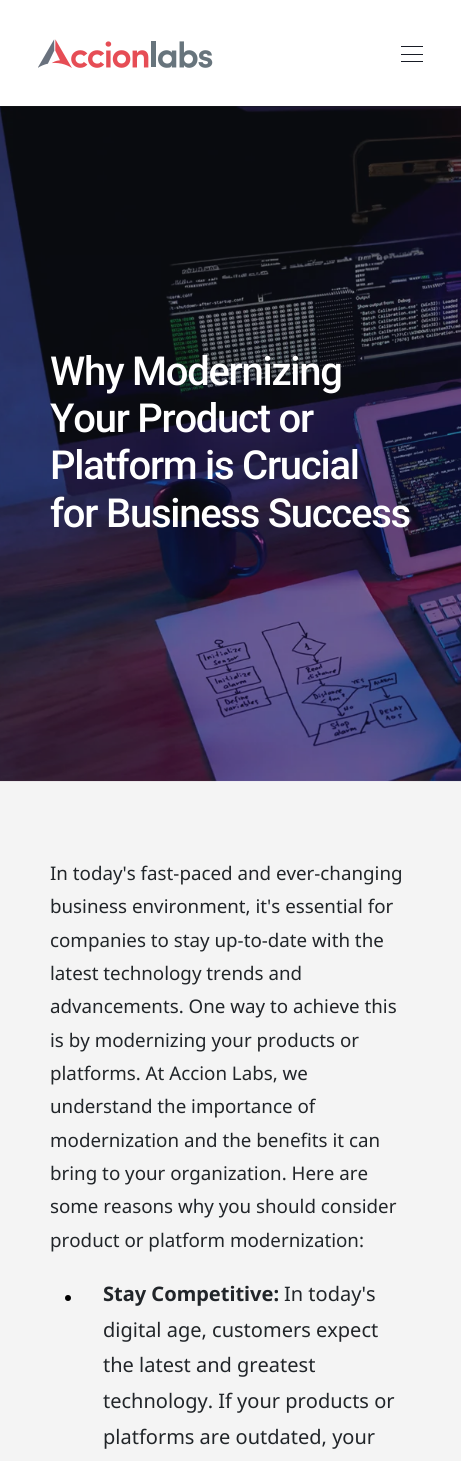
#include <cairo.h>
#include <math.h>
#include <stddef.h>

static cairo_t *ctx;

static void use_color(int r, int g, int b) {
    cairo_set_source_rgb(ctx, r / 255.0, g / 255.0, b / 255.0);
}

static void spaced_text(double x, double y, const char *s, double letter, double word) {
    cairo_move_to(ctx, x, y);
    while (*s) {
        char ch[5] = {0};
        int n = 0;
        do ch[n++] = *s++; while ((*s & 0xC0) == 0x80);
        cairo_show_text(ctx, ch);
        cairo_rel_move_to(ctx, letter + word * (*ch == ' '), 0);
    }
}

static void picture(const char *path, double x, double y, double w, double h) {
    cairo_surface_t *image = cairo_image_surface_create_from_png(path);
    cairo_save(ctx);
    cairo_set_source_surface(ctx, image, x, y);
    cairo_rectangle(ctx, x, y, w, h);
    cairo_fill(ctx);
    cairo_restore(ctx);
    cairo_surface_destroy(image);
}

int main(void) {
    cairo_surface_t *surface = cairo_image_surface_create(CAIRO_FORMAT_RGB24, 461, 1461);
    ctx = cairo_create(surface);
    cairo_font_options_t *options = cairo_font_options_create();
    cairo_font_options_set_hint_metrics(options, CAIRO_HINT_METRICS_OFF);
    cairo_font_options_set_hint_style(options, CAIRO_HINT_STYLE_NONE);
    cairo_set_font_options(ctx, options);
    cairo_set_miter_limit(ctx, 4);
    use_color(255, 255, 255);
    cairo_paint(ctx);
    picture("img1.png", 38, 39, 175, 29);
    use_color(23, 27, 37);
    cairo_rectangle(ctx, 401, 46, 22, 1);
    cairo_fill(ctx);
    cairo_rectangle(ctx, 401, 54, 22, 1);
    cairo_fill(ctx);
    cairo_rectangle(ctx, 401, 61, 22, 1);
    cairo_fill(ctx);
    use_color(25, 28, 29);
    cairo_rectangle(ctx, 0, 106, 461, 1);
    cairo_fill(ctx);
    use_color(244, 244, 244);
    cairo_rectangle(ctx, 0, 781, 461, 680);
    cairo_fill(ctx);
    picture("img2.png", 0, 106, 461, 676);
    cairo_select_font_face(ctx, "Roboto Medium", CAIRO_FONT_SLANT_NORMAL, CAIRO_FONT_WEIGHT_NORMAL);
    cairo_set_font_size(ctx, 40);
    use_color(255, 255, 255);
    spaced_text(50, 385, "Why Modernizing", -1.25, 0);
    spaced_text(50, 432, "Your Product or", -1.25, 0);
    spaced_text(50, 479, "Platform is Crucial", -1.25, 0);
    spaced_text(50, 527, "for Business Success", -1.25, 0);
    cairo_select_font_face(ctx, "Noto Sans", CAIRO_FONT_SLANT_NORMAL, CAIRO_FONT_WEIGHT_NORMAL);
    cairo_set_font_size(ctx, 18.75);
    use_color(33, 37, 41);
    cairo_move_to(ctx, 50, 880);
    cairo_show_text(ctx, "In today's fast-paced and ever-changing");
    cairo_move_to(ctx, 50, 913);
    cairo_show_text(ctx, "business environment, it's essential for");
    cairo_move_to(ctx, 50, 947);
    cairo_show_text(ctx, "companies to stay up-to-date with the");
    cairo_move_to(ctx, 50, 980);
    cairo_show_text(ctx, "latest technology trends and");
    cairo_move_to(ctx, 50, 1013);
    cairo_show_text(ctx, "advancements. One way to achieve this");
    cairo_move_to(ctx, 50, 1047);
    cairo_show_text(ctx, "is by modernizing your products or");
    cairo_move_to(ctx, 50, 1080);
    cairo_show_text(ctx, "platforms. At Accion Labs, we");
    cairo_move_to(ctx, 50, 1113);
    cairo_show_text(ctx, "understand the importance of");
    cairo_move_to(ctx, 50, 1147);
    cairo_show_text(ctx, "modernization and the benefits it can");
    cairo_move_to(ctx, 50, 1180);
    cairo_show_text(ctx, "bring to your organization. Here are");
    cairo_move_to(ctx, 50, 1213);
    cairo_show_text(ctx, "some reasons why you should consider");
    cairo_move_to(ctx, 50, 1247);
    cairo_show_text(ctx, "product or platform modernization:");
    use_color(0, 0, 0);
    cairo_new_path(ctx);
    cairo_arc(ctx, 68, 1298, 3, 0, 2 * M_PI);
    cairo_fill(ctx);
    cairo_select_font_face(ctx, "Noto Sans", CAIRO_FONT_SLANT_NORMAL, CAIRO_FONT_WEIGHT_BOLD);
    cairo_set_font_size(ctx, 20);
    use_color(33, 37, 41);
    cairo_move_to(ctx, 103, 1301);
    cairo_show_text(ctx, "Stay Competitive:");
    cairo_select_font_face(ctx, "Noto Sans", CAIRO_FONT_SLANT_NORMAL, CAIRO_FONT_WEIGHT_NORMAL);
    cairo_move_to(ctx, 284, 1301);
    cairo_show_text(ctx, "In today's");
    cairo_move_to(ctx, 103, 1337);
    cairo_show_text(ctx, "digital age, customers expect");
    cairo_move_to(ctx, 103, 1372);
    cairo_show_text(ctx, "the latest and greatest");
    cairo_move_to(ctx, 103, 1408);
    cairo_show_text(ctx, "technology. If your products or");
    cairo_move_to(ctx, 103, 1444);
    cairo_show_text(ctx, "platforms are outdated, your");
    cairo_surface_write_to_png(surface, "result.png");
    cairo_font_options_destroy(options);
    cairo_destroy(ctx);
    cairo_surface_destroy(surface);
    return 0;
}
